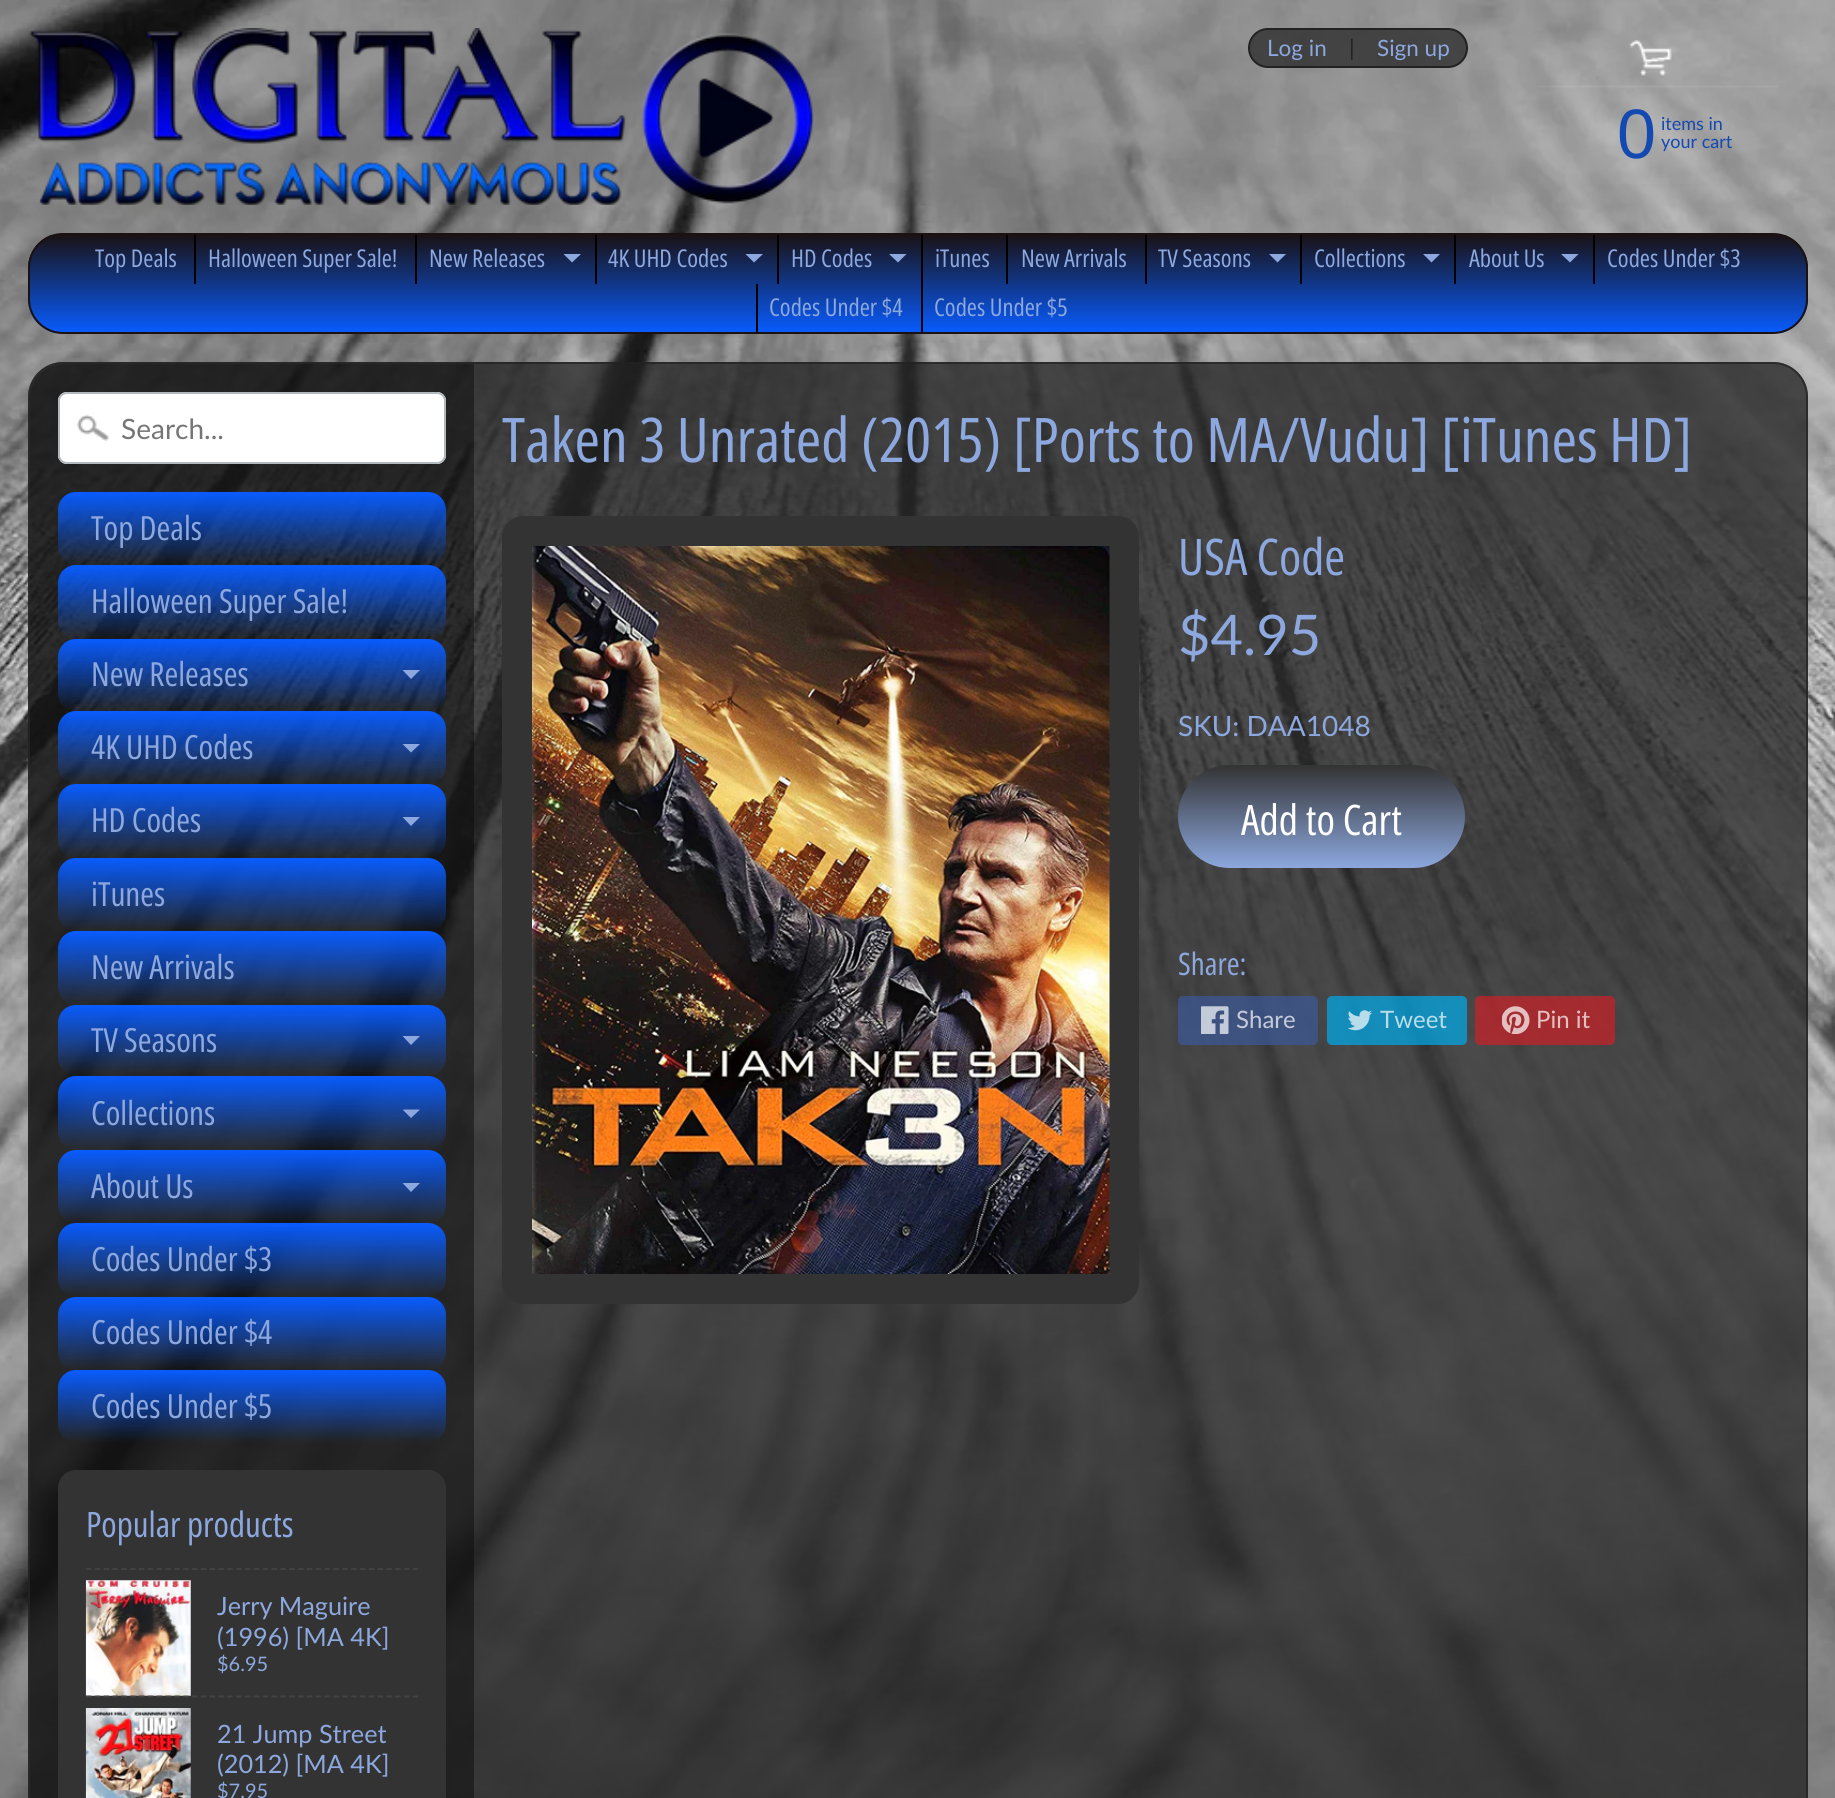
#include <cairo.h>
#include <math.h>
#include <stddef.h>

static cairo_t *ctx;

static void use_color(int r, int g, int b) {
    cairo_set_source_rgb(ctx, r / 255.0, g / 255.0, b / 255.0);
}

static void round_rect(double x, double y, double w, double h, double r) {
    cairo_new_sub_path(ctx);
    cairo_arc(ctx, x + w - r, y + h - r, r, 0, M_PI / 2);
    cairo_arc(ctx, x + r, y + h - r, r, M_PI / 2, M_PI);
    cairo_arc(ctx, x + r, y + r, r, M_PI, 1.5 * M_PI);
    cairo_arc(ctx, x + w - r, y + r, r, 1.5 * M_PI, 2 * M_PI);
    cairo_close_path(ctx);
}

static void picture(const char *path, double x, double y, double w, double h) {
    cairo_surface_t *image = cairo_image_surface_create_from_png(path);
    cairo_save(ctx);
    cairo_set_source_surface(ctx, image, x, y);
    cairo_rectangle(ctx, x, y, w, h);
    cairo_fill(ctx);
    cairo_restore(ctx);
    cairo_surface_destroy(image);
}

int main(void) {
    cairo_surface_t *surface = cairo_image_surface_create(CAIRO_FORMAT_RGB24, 1835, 1798);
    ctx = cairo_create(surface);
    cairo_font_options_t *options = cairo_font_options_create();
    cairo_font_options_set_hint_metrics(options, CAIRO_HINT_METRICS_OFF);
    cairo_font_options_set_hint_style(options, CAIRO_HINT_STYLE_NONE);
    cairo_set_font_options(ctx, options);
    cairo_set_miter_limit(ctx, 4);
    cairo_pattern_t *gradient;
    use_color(255, 255, 255);
    cairo_paint(ctx);
    picture("img1.png", 0, 0, 1835, 1798);
    picture("img2.png", 29, 28, 785, 177);
    cairo_set_source_rgba(ctx, 0.133, 0.133, 0.133, 0.7);
    round_rect(1249, 29, 218, 38, 19);
    cairo_fill_preserve(ctx);
    use_color(34, 34, 34);
    cairo_stroke(ctx);
    cairo_select_font_face(ctx, "Lato", CAIRO_FONT_SLANT_NORMAL, CAIRO_FONT_WEIGHT_NORMAL);
    cairo_set_font_size(ctx, 22.5);
    use_color(140, 168, 222);
    cairo_move_to(ctx, 1267, 56);
    cairo_show_text(ctx, "Log in");
    use_color(34, 34, 34);
    cairo_move_to(ctx, 1349, 56);
    cairo_show_text(ctx, "|");
    use_color(140, 168, 222);
    cairo_move_to(ctx, 1377, 56);
    cairo_show_text(ctx, "Sign up");
    picture("img3.png", 1537, 40, 242, 144);
    cairo_select_font_face(ctx, "Liberation Sans", CAIRO_FONT_SLANT_NORMAL, CAIRO_FONT_WEIGHT_NORMAL);
    cairo_set_font_size(ctx, 70);
    use_color(19, 73, 177);
    cairo_move_to(ctx, 1617, 158);
    cairo_show_text(ctx, "0");
    cairo_select_font_face(ctx, "Lato", CAIRO_FONT_SLANT_NORMAL, CAIRO_FONT_WEIGHT_NORMAL);
    cairo_set_font_size(ctx, 18);
    cairo_move_to(ctx, 1661, 130);
    cairo_show_text(ctx, "items in");
    cairo_move_to(ctx, 1661, 148);
    cairo_show_text(ctx, "your cart");
    cairo_save(ctx);
    round_rect(28, 233, 1780, 101, 35);
    cairo_clip(ctx);
    gradient = cairo_pattern_create_linear(918, 234, 918, 333);
    cairo_pattern_add_color_stop_rgba(gradient, 0, 0.102, 0.067, 0.067, 1);
    cairo_pattern_add_color_stop_rgba(gradient, 1, 0.031, 0.361, 1, 1);
    cairo_set_source(ctx, gradient);
    cairo_pattern_destroy(gradient);
    cairo_rectangle(ctx, 28, 235, 1780, 98);
    cairo_fill(ctx);
    cairo_restore(ctx);
    round_rect(29, 234, 1778, 99, 34);
    use_color(26, 17, 17);
    cairo_stroke(ctx);
    cairo_select_font_face(ctx, "Open Sans Condensed", CAIRO_FONT_SLANT_NORMAL, CAIRO_FONT_WEIGHT_NORMAL);
    cairo_set_font_size(ctx, 24.5);
    use_color(140, 168, 222);
    cairo_move_to(ctx, 95, 267);
    cairo_show_text(ctx, "Top Deals");
    use_color(0, 0, 0);
    cairo_rectangle(ctx, 194, 235, 2, 49);
    cairo_fill(ctx);
    use_color(140, 168, 222);
    cairo_move_to(ctx, 208, 267);
    cairo_show_text(ctx, "Halloween Super Sale!");
    use_color(0, 0, 0);
    cairo_rectangle(ctx, 415, 235, 2, 49);
    cairo_fill(ctx);
    use_color(140, 168, 222);
    cairo_move_to(ctx, 429, 267);
    cairo_show_text(ctx, "New Releases");
    cairo_new_path(ctx);
    cairo_move_to(ctx, 563.5, 254);
    cairo_line_to(ctx, 581, 254);
    cairo_line_to(ctx, 572, 262.5);
    cairo_close_path(ctx);
    cairo_fill(ctx);
    use_color(0, 0, 0);
    cairo_rectangle(ctx, 595, 235, 2, 49);
    cairo_fill(ctx);
    use_color(140, 168, 222);
    cairo_move_to(ctx, 608, 267);
    cairo_show_text(ctx, "4K UHD Codes");
    cairo_new_path(ctx);
    cairo_move_to(ctx, 745.5, 254);
    cairo_line_to(ctx, 763, 254);
    cairo_line_to(ctx, 754, 262.5);
    cairo_close_path(ctx);
    cairo_fill(ctx);
    use_color(0, 0, 0);
    cairo_rectangle(ctx, 777, 235, 2, 49);
    cairo_fill(ctx);
    use_color(140, 168, 222);
    cairo_move_to(ctx, 791, 267);
    cairo_show_text(ctx, "HD Codes");
    cairo_new_path(ctx);
    cairo_move_to(ctx, 889, 254);
    cairo_line_to(ctx, 906.5, 254);
    cairo_line_to(ctx, 898, 262.5);
    cairo_close_path(ctx);
    cairo_fill(ctx);
    use_color(0, 0, 0);
    cairo_rectangle(ctx, 921, 235, 2, 98);
    cairo_fill(ctx);
    use_color(140, 168, 222);
    cairo_move_to(ctx, 935, 267);
    cairo_show_text(ctx, "iTunes");
    use_color(0, 0, 0);
    cairo_rectangle(ctx, 1006, 235, 2, 49);
    cairo_fill(ctx);
    use_color(140, 168, 222);
    cairo_move_to(ctx, 1021, 267);
    cairo_show_text(ctx, "New Arrivals");
    use_color(0, 0, 0);
    cairo_rectangle(ctx, 1145, 235, 2, 49);
    cairo_fill(ctx);
    use_color(140, 168, 222);
    cairo_move_to(ctx, 1158, 267);
    cairo_show_text(ctx, "TV Seasons");
    cairo_new_path(ctx);
    cairo_move_to(ctx, 1269, 254);
    cairo_line_to(ctx, 1286, 254);
    cairo_line_to(ctx, 1277.5, 262.5);
    cairo_close_path(ctx);
    cairo_fill(ctx);
    use_color(0, 0, 0);
    cairo_rectangle(ctx, 1300, 235, 2, 49);
    cairo_fill(ctx);
    use_color(140, 168, 222);
    cairo_move_to(ctx, 1314, 267);
    cairo_show_text(ctx, "Collections");
    cairo_new_path(ctx);
    cairo_move_to(ctx, 1423, 254);
    cairo_line_to(ctx, 1440, 254);
    cairo_line_to(ctx, 1431.5, 262.5);
    cairo_close_path(ctx);
    cairo_fill(ctx);
    use_color(0, 0, 0);
    cairo_rectangle(ctx, 1454, 235, 2, 49);
    cairo_fill(ctx);
    use_color(140, 168, 222);
    cairo_move_to(ctx, 1469, 267);
    cairo_show_text(ctx, "About Us");
    cairo_new_path(ctx);
    cairo_move_to(ctx, 1561, 254);
    cairo_line_to(ctx, 1578.5, 254);
    cairo_line_to(ctx, 1570, 262.5);
    cairo_close_path(ctx);
    cairo_fill(ctx);
    use_color(0, 0, 0);
    cairo_rectangle(ctx, 1593, 235, 2, 49);
    cairo_fill(ctx);
    use_color(140, 168, 222);
    cairo_move_to(ctx, 1607, 267);
    cairo_show_text(ctx, "Codes Under $3");
    use_color(0, 0, 0);
    cairo_rectangle(ctx, 756, 284, 2, 49);
    cairo_fill(ctx);
    use_color(140, 168, 222);
    cairo_move_to(ctx, 769, 316);
    cairo_show_text(ctx, "Codes Under $4");
    cairo_move_to(ctx, 934, 316);
    cairo_show_text(ctx, "Codes Under $5");
    cairo_set_source_rgba(ctx, 0.133, 0.133, 0.133, 0.75);
    round_rect(28, 362, 1780, 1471, 35);
    cairo_fill(ctx);
    round_rect(29, 363, 1778, 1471, 34);
    cairo_set_source_rgba(ctx, 0.133, 0.133, 0.133, 0.7);
    cairo_stroke(ctx);
    cairo_set_source_rgba(ctx, 0, 0, 0, 0.4);
    cairo_new_path(ctx);
    cairo_move_to(ctx, 63, 364);
    cairo_line_to(ctx, 474, 364);
    cairo_line_to(ctx, 474, 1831);
    cairo_line_to(ctx, 63, 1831);
    cairo_curve_to(ctx, 45, 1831, 30, 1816, 30, 1798);
    cairo_line_to(ctx, 30, 397);
    cairo_curve_to(ctx, 30, 379, 45, 364, 63, 364);
    cairo_close_path(ctx);
    cairo_fill(ctx);
    use_color(255, 255, 255);
    round_rect(58, 392, 388, 72, 9);
    cairo_fill(ctx);
    picture("img4.png", 77, 414, 32, 27);
    round_rect(59, 393, 386, 70, 8);
    use_color(178, 185, 189);
    cairo_stroke(ctx);
    cairo_select_font_face(ctx, "Lato", CAIRO_FONT_SLANT_NORMAL, CAIRO_FONT_WEIGHT_NORMAL);
    cairo_set_font_size(ctx, 28);
    use_color(117, 117, 117);
    cairo_move_to(ctx, 121, 439);
    cairo_show_text(ctx, "Search...");
    gradient = cairo_pattern_create_linear(252, 492, 252, 565);
    cairo_pattern_add_color_stop_rgba(gradient, 0, 0.031, 0.361, 1, 1);
    cairo_pattern_add_color_stop_rgba(gradient, 1, 0.031, 0.361, 1, 0);
    cairo_set_source(ctx, gradient);
    cairo_pattern_destroy(gradient);
    round_rect(58, 492, 388, 73, 18);
    cairo_fill(ctx);
    cairo_select_font_face(ctx, "Open Sans Condensed", CAIRO_FONT_SLANT_NORMAL, CAIRO_FONT_WEIGHT_NORMAL);
    cairo_set_font_size(ctx, 33.25);
    use_color(140, 168, 222);
    cairo_move_to(ctx, 91, 540);
    cairo_show_text(ctx, "Top Deals");
    gradient = cairo_pattern_create_linear(252, 565, 252, 639);
    cairo_pattern_add_color_stop_rgba(gradient, 0, 0.031, 0.361, 1, 1);
    cairo_pattern_add_color_stop_rgba(gradient, 1, 0.031, 0.361, 1, 0);
    cairo_set_source(ctx, gradient);
    cairo_pattern_destroy(gradient);
    round_rect(58, 565, 388, 74, 18);
    cairo_fill(ctx);
    use_color(140, 168, 222);
    cairo_move_to(ctx, 91, 613);
    cairo_show_text(ctx, "Halloween Super Sale!");
    gradient = cairo_pattern_create_linear(252, 639, 252, 711);
    cairo_pattern_add_color_stop_rgba(gradient, 0, 0.031, 0.361, 1, 1);
    cairo_pattern_add_color_stop_rgba(gradient, 1, 0.031, 0.361, 1, 0);
    cairo_set_source(ctx, gradient);
    cairo_pattern_destroy(gradient);
    round_rect(58, 639, 388, 72, 18);
    cairo_fill(ctx);
    use_color(140, 168, 222);
    cairo_move_to(ctx, 91, 686);
    cairo_show_text(ctx, "New Releases");
    cairo_new_path(ctx);
    cairo_move_to(ctx, 402.5, 670);
    cairo_line_to(ctx, 420, 670);
    cairo_line_to(ctx, 411, 679);
    cairo_close_path(ctx);
    cairo_fill(ctx);
    gradient = cairo_pattern_create_linear(252, 711, 252, 784);
    cairo_pattern_add_color_stop_rgba(gradient, 0, 0.031, 0.361, 1, 1);
    cairo_pattern_add_color_stop_rgba(gradient, 1, 0.031, 0.361, 1, 0);
    cairo_set_source(ctx, gradient);
    cairo_pattern_destroy(gradient);
    round_rect(58, 711, 388, 73, 18);
    cairo_fill(ctx);
    use_color(140, 168, 222);
    cairo_move_to(ctx, 91, 759);
    cairo_show_text(ctx, "4K UHD Codes");
    cairo_new_path(ctx);
    cairo_move_to(ctx, 402.5, 744);
    cairo_line_to(ctx, 420, 744);
    cairo_line_to(ctx, 411, 752.5);
    cairo_close_path(ctx);
    cairo_fill(ctx);
    gradient = cairo_pattern_create_linear(252, 784, 252, 858);
    cairo_pattern_add_color_stop_rgba(gradient, 0, 0.031, 0.361, 1, 1);
    cairo_pattern_add_color_stop_rgba(gradient, 1, 0.031, 0.361, 1, 0);
    cairo_set_source(ctx, gradient);
    cairo_pattern_destroy(gradient);
    round_rect(58, 784, 388, 74, 18);
    cairo_fill(ctx);
    use_color(140, 168, 222);
    cairo_move_to(ctx, 91, 832);
    cairo_show_text(ctx, "HD Codes");
    cairo_new_path(ctx);
    cairo_move_to(ctx, 402.5, 817);
    cairo_line_to(ctx, 420, 817);
    cairo_line_to(ctx, 411, 826);
    cairo_close_path(ctx);
    cairo_fill(ctx);
    gradient = cairo_pattern_create_linear(252, 858, 252, 931);
    cairo_pattern_add_color_stop_rgba(gradient, 0, 0.031, 0.361, 1, 1);
    cairo_pattern_add_color_stop_rgba(gradient, 1, 0.031, 0.361, 1, 0);
    cairo_set_source(ctx, gradient);
    cairo_pattern_destroy(gradient);
    round_rect(58, 858, 388, 73, 18);
    cairo_fill(ctx);
    use_color(140, 168, 222);
    cairo_move_to(ctx, 91, 906);
    cairo_show_text(ctx, "iTunes");
    gradient = cairo_pattern_create_linear(252, 931, 252, 1005);
    cairo_pattern_add_color_stop_rgba(gradient, 0, 0.031, 0.361, 1, 1);
    cairo_pattern_add_color_stop_rgba(gradient, 1, 0.031, 0.361, 1, 0);
    cairo_set_source(ctx, gradient);
    cairo_pattern_destroy(gradient);
    round_rect(58, 931, 388, 74, 18);
    cairo_fill(ctx);
    use_color(140, 168, 222);
    cairo_move_to(ctx, 91, 979);
    cairo_show_text(ctx, "New Arrivals");
    gradient = cairo_pattern_create_linear(252, 1005, 252, 1076);
    cairo_pattern_add_color_stop_rgba(gradient, 0, 0.031, 0.361, 1, 1);
    cairo_pattern_add_color_stop_rgba(gradient, 1, 0.031, 0.361, 1, 0);
    cairo_set_source(ctx, gradient);
    cairo_pattern_destroy(gradient);
    round_rect(58, 1005, 388, 71, 18);
    cairo_fill(ctx);
    use_color(140, 168, 222);
    cairo_move_to(ctx, 91, 1052);
    cairo_show_text(ctx, "TV Seasons");
    cairo_new_path(ctx);
    cairo_move_to(ctx, 402.5, 1036);
    cairo_line_to(ctx, 420, 1036);
    cairo_line_to(ctx, 411, 1045);
    cairo_close_path(ctx);
    cairo_fill(ctx);
    gradient = cairo_pattern_create_linear(252, 1076, 252, 1150);
    cairo_pattern_add_color_stop_rgba(gradient, 0, 0.031, 0.361, 1, 1);
    cairo_pattern_add_color_stop_rgba(gradient, 1, 0.031, 0.361, 1, 0);
    cairo_set_source(ctx, gradient);
    cairo_pattern_destroy(gradient);
    round_rect(58, 1076, 388, 74, 18);
    cairo_fill(ctx);
    use_color(140, 168, 222);
    cairo_move_to(ctx, 91, 1125);
    cairo_show_text(ctx, "Collections");
    cairo_new_path(ctx);
    cairo_move_to(ctx, 402.5, 1109.5);
    cairo_line_to(ctx, 420, 1109.5);
    cairo_line_to(ctx, 411, 1118);
    cairo_close_path(ctx);
    cairo_fill(ctx);
    gradient = cairo_pattern_create_linear(252, 1150, 252, 1223);
    cairo_pattern_add_color_stop_rgba(gradient, 0, 0.031, 0.361, 1, 1);
    cairo_pattern_add_color_stop_rgba(gradient, 1, 0.031, 0.361, 1, 0);
    cairo_set_source(ctx, gradient);
    cairo_pattern_destroy(gradient);
    round_rect(58, 1150, 388, 73, 18);
    cairo_fill(ctx);
    use_color(140, 168, 222);
    cairo_move_to(ctx, 91, 1198);
    cairo_show_text(ctx, "About Us");
    cairo_new_path(ctx);
    cairo_move_to(ctx, 402.5, 1183);
    cairo_line_to(ctx, 420, 1183);
    cairo_line_to(ctx, 411, 1192);
    cairo_close_path(ctx);
    cairo_fill(ctx);
    gradient = cairo_pattern_create_linear(252, 1223, 252, 1297);
    cairo_pattern_add_color_stop_rgba(gradient, 0, 0.031, 0.361, 1, 1);
    cairo_pattern_add_color_stop_rgba(gradient, 1, 0.031, 0.361, 1, 0);
    cairo_set_source(ctx, gradient);
    cairo_pattern_destroy(gradient);
    round_rect(58, 1223, 388, 74, 18);
    cairo_fill(ctx);
    use_color(140, 168, 222);
    cairo_move_to(ctx, 91, 1271);
    cairo_show_text(ctx, "Codes Under $3");
    gradient = cairo_pattern_create_linear(252, 1297, 252, 1370);
    cairo_pattern_add_color_stop_rgba(gradient, 0, 0.031, 0.361, 1, 1);
    cairo_pattern_add_color_stop_rgba(gradient, 1, 0.031, 0.361, 1, 0);
    cairo_set_source(ctx, gradient);
    cairo_pattern_destroy(gradient);
    round_rect(58, 1297, 388, 73, 18);
    cairo_fill(ctx);
    use_color(140, 168, 222);
    cairo_move_to(ctx, 91, 1344);
    cairo_show_text(ctx, "Codes Under $4");
    gradient = cairo_pattern_create_linear(252, 1370, 252, 1442);
    cairo_pattern_add_color_stop_rgba(gradient, 0, 0.031, 0.361, 1, 1);
    cairo_pattern_add_color_stop_rgba(gradient, 1, 0.031, 0.361, 1, 0);
    cairo_set_source(ctx, gradient);
    cairo_pattern_destroy(gradient);
    round_rect(58, 1370, 388, 72, 18);
    cairo_fill(ctx);
    use_color(140, 168, 222);
    cairo_move_to(ctx, 91, 1418);
    cairo_show_text(ctx, "Codes Under $5");
    use_color(51, 51, 51);
    round_rect(58, 1470, 388, 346, 18);
    cairo_fill(ctx);
    cairo_set_font_size(ctx, 35);
    use_color(140, 168, 222);
    cairo_move_to(ctx, 86, 1537);
    cairo_show_text(ctx, "Popular products");
    cairo_new_path(ctx);
    cairo_move_to(ctx, 86, 1569);
    cairo_line_to(ctx, 418, 1569);
    use_color(68, 68, 68);
    cairo_set_line_width(ctx, 1.8);
    cairo_set_dash(ctx, (double[]){5.25, 3.59}, 2, 0);
    cairo_stroke(ctx);
    picture("img5.png", 85, 1580, 106, 116);
    cairo_select_font_face(ctx, "Lato", CAIRO_FONT_SLANT_NORMAL, CAIRO_FONT_WEIGHT_NORMAL);
    cairo_set_font_size(ctx, 25.25);
    use_color(140, 168, 222);
    cairo_move_to(ctx, 217, 1615);
    cairo_show_text(ctx, "Jerry Maguire");
    cairo_move_to(ctx, 217, 1646);
    cairo_show_text(ctx, "(1996) [MA 4K]");
    cairo_set_font_size(ctx, 20);
    cairo_move_to(ctx, 217, 1671);
    cairo_show_text(ctx, "$6.95");
    cairo_new_path(ctx);
    cairo_move_to(ctx, 86, 1696.5);
    cairo_line_to(ctx, 418, 1696.5);
    use_color(68, 68, 68);
    cairo_stroke(ctx);
    picture("img6.png", 85, 1708, 106, 90);
    cairo_set_font_size(ctx, 25.25);
    use_color(140, 168, 222);
    cairo_move_to(ctx, 217, 1743);
    cairo_show_text(ctx, "21 Jump Street");
    cairo_move_to(ctx, 217, 1773);
    cairo_show_text(ctx, "(2012) [MA 4K]");
    cairo_set_font_size(ctx, 20);
    cairo_move_to(ctx, 217, 1798);
    cairo_show_text(ctx, "$7.95");
    cairo_select_font_face(ctx, "Open Sans Condensed", CAIRO_FONT_SLANT_NORMAL, CAIRO_FONT_WEIGHT_NORMAL);
    cairo_set_font_size(ctx, 61.6);
    cairo_move_to(ctx, 502, 462);
    cairo_show_text(ctx, "Taken 3 Unrated (2015) [Ports to MA/Vudu] [iTunes HD]");
    use_color(51, 51, 51);
    round_rect(503, 517, 635, 786, 20);
    cairo_fill_preserve(ctx);
    cairo_set_line_width(ctx, 2);
    cairo_set_dash(ctx, NULL, 0, 0);
    cairo_stroke(ctx);
    picture("img7.png", 532, 546, 578, 728);
    cairo_set_font_size(ctx, 50.5);
    use_color(140, 168, 222);
    cairo_move_to(ctx, 1178, 575);
    cairo_show_text(ctx, "USA Code");
    cairo_select_font_face(ctx, "Lato", CAIRO_FONT_SLANT_NORMAL, CAIRO_FONT_WEIGHT_NORMAL);
    cairo_set_font_size(ctx, 56);
    cairo_move_to(ctx, 1178, 655);
    cairo_show_text(ctx, "$4.95");
    cairo_set_font_size(ctx, 28);
    cairo_move_to(ctx, 1178, 736);
    cairo_show_text(ctx, "SKU: DAA1048");
    gradient = cairo_pattern_create_linear(1321, 765, 1321, 868);
    cairo_pattern_add_color_stop_rgba(gradient, 0, 0.2, 0.2, 0.2, 1);
    cairo_pattern_add_color_stop_rgba(gradient, 1, 0.549, 0.659, 0.871, 1);
    cairo_set_source(ctx, gradient);
    cairo_pattern_destroy(gradient);
    round_rect(1178, 765, 287, 103, 51.5);
    cairo_fill(ctx);
    cairo_select_font_face(ctx, "Open Sans Condensed", CAIRO_FONT_SLANT_NORMAL, CAIRO_FONT_WEIGHT_NORMAL);
    cairo_set_font_size(ctx, 42);
    use_color(255, 255, 255);
    cairo_move_to(ctx, 1241, 835);
    cairo_show_text(ctx, "Add to Cart");
    cairo_set_font_size(ctx, 31);
    use_color(140, 168, 222);
    cairo_move_to(ctx, 1178, 975);
    cairo_show_text(ctx, "Share:");
    cairo_set_source_rgba(ctx, 0.231, 0.349, 0.596, 0.7);
    round_rect(1178, 996, 140, 49, 5);
    cairo_fill(ctx);
    picture("img8.png", 1201, 1006, 28, 28);
    cairo_select_font_face(ctx, "Lato", CAIRO_FONT_SLANT_NORMAL, CAIRO_FONT_WEIGHT_NORMAL);
    cairo_set_font_size(ctx, 24);
    use_color(197, 203, 216);
    cairo_move_to(ctx, 1236, 1028);
    cairo_show_text(ctx, "Share");
    cairo_set_source_rgba(ctx, 0, 0.675, 0.929, 0.7);
    round_rect(1327, 996, 140, 49, 5);
    cairo_fill(ctx);
    picture("img9.png", 1348, 1010, 24, 21);
    use_color(184, 221, 234);
    cairo_move_to(ctx, 1380, 1028);
    cairo_show_text(ctx, "Tweet");
    cairo_set_source_rgba(ctx, 0.8, 0.129, 0.153, 0.7);
    round_rect(1475, 996, 140, 49, 5);
    cairo_fill(ctx);
    picture("img10.png", 1502, 1006, 28, 28);
    use_color(228, 192, 193);
    cairo_move_to(ctx, 1536, 1028);
    cairo_show_text(ctx, "Pin it");
    cairo_surface_write_to_png(surface, "result.png");
    cairo_font_options_destroy(options);
    cairo_destroy(ctx);
    cairo_surface_destroy(surface);
    return 0;
}
